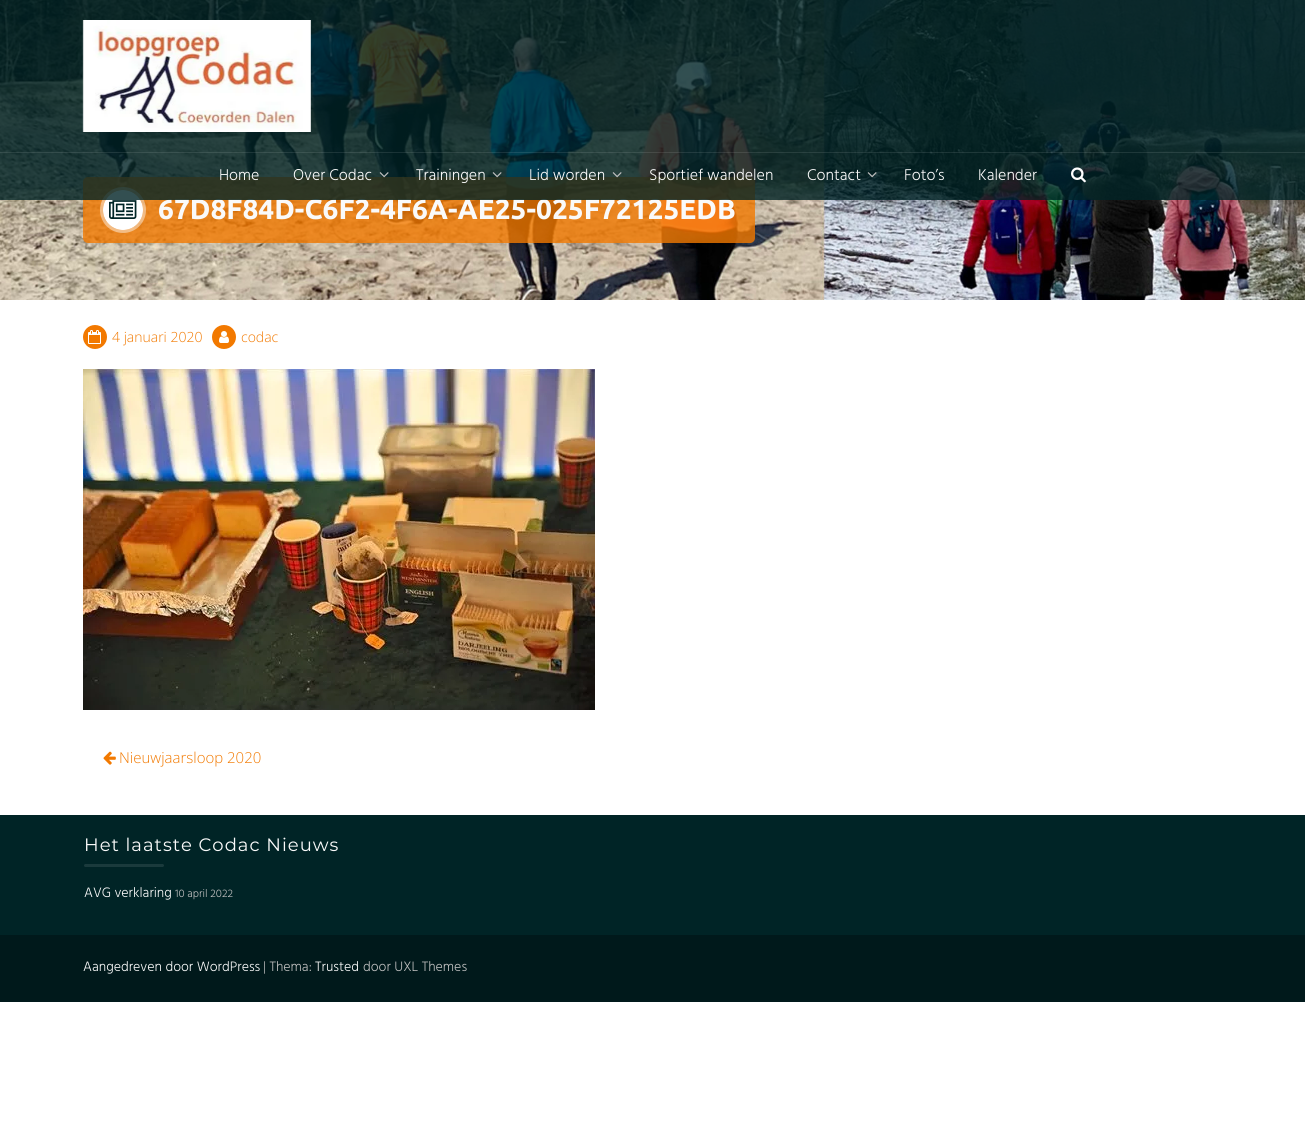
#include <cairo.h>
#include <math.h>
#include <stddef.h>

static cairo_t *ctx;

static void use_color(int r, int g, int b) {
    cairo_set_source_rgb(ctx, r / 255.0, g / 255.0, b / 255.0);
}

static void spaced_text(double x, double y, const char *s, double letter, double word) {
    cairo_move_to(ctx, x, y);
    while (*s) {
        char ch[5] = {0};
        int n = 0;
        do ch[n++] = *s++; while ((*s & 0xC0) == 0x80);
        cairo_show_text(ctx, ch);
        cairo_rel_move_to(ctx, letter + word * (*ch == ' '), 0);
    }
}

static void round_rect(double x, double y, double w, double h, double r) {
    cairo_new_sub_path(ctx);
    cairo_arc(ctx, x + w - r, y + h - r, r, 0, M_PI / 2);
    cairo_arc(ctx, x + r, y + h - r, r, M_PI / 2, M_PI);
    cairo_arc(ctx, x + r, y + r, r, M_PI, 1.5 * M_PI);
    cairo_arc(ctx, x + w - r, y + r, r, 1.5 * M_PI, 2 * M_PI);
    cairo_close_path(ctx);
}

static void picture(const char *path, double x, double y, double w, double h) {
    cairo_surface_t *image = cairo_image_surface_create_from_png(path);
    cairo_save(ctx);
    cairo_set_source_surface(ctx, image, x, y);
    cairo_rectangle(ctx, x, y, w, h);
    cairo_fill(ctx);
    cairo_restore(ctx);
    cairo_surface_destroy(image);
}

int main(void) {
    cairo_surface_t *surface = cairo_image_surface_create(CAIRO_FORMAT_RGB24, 1305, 1134);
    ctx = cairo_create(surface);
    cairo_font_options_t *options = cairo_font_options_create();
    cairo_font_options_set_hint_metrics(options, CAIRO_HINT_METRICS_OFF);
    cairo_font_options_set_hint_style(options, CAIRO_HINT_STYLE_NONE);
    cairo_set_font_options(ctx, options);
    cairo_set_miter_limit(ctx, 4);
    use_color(255, 255, 255);
    cairo_paint(ctx);
    picture("img7.png", 0, 0, 1305, 300);
    cairo_set_source_rgba(ctx, 0.949, 0.475, 0, 0.8);
    round_rect(83, 177, 672, 66, 5);
    cairo_fill(ctx);
    cairo_arc(ctx, 123, 210, 21.5, 0, 2 * M_PI);
    cairo_set_source_rgba(ctx, 1, 1, 1, 0.45);
    cairo_set_line_width(ctx, 3);
    cairo_stroke(ctx);
    use_color(255, 255, 255);
    cairo_arc(ctx, 123, 210, 20, 0, 2 * M_PI);
    cairo_fill(ctx);
    cairo_select_font_face(ctx, "Ubuntu", CAIRO_FONT_SLANT_NORMAL, CAIRO_FONT_WEIGHT_BOLD);
    cairo_set_font_size(ctx, 28);
    use_color(250, 250, 250);
    cairo_move_to(ctx, 158, 219);
    cairo_show_text(ctx, "67D8F84D-C6F2-4F6A-AE25-025F72125EDB");
    cairo_set_source_rgba(ctx, 0, 0.141, 0.149, 0.8);
    cairo_rectangle(ctx, 0, 0, 1305, 200);
    cairo_fill(ctx);
    picture("img1.png", 82, 20, 229, 112);
    cairo_set_source_rgba(ctx, 1, 1, 1, 0.1);
    cairo_rectangle(ctx, 0, 152, 1305, 1);
    cairo_fill(ctx);
    cairo_select_font_face(ctx, "Hind Light", CAIRO_FONT_SLANT_NORMAL, CAIRO_FONT_WEIGHT_NORMAL);
    cairo_set_font_size(ctx, 16);
    use_color(250, 250, 250);
    cairo_move_to(ctx, 219, 180);
    cairo_show_text(ctx, "Home");
    cairo_move_to(ctx, 293, 180);
    cairo_show_text(ctx, "Over Codac");
    picture("img2.png", 379, 172, 10, 6);
    cairo_move_to(ctx, 416, 180);
    cairo_show_text(ctx, "Trainingen");
    picture("img3.png", 492, 172, 10, 6);
    cairo_move_to(ctx, 529, 180);
    cairo_show_text(ctx, "Lid worden");
    picture("img4.png", 612, 172, 10, 6);
    cairo_move_to(ctx, 649, 180);
    cairo_show_text(ctx, "Sportief wandelen");
    cairo_move_to(ctx, 807, 180);
    cairo_show_text(ctx, "Contact");
    picture("img5.png", 867, 172, 10, 6);
    cairo_move_to(ctx, 904, 180);
    cairo_show_text(ctx, "Foto’s");
    cairo_move_to(ctx, 978, 180);
    cairo_show_text(ctx, "Kalender");
    picture("img6.png", 1071, 167, 15, 16);
    picture("img8.png", 109, 200, 28, 19);
    use_color(242, 121, 0);
    cairo_arc(ctx, 95, 337, 12, 0, 2 * M_PI);
    cairo_fill(ctx);
    picture("img9.png", 88, 330, 13, 14);
    cairo_select_font_face(ctx, "Open Sans Light", CAIRO_FONT_SLANT_NORMAL, CAIRO_FONT_WEIGHT_NORMAL);
    cairo_set_font_size(ctx, 14);
    cairo_move_to(ctx, 112, 342);
    cairo_show_text(ctx, "4 januari 2020");
    cairo_new_path(ctx);
    cairo_arc(ctx, 224, 337, 12, 0, 2 * M_PI);
    cairo_fill(ctx);
    picture("img10.png", 219, 331, 10, 12);
    cairo_move_to(ctx, 241, 342);
    cairo_show_text(ctx, "codac");
    picture("img11.png", 83, 369, 512, 341);
    picture("img12.png", 103, 751, 13, 14);
    cairo_set_font_size(ctx, 15);
    cairo_move_to(ctx, 119, 763);
    cairo_show_text(ctx, "Nieuwjaarsloop 2020");
    use_color(0, 36, 38);
    cairo_rectangle(ctx, 0, 815, 1305, 120);
    cairo_fill(ctx);
    cairo_select_font_face(ctx, "Montserrat", CAIRO_FONT_SLANT_NORMAL, CAIRO_FONT_WEIGHT_NORMAL);
    cairo_set_font_size(ctx, 18);
    use_color(250, 250, 250);
    spaced_text(84, 851, "Het laatste Codac Nieuws", 1, 0);
    use_color(26, 58, 60);
    round_rect(84, 864, 80, 3, 1.5);
    cairo_fill(ctx);
    cairo_select_font_face(ctx, "Hind Light", CAIRO_FONT_SLANT_NORMAL, CAIRO_FONT_WEIGHT_NORMAL);
    cairo_set_font_size(ctx, 14);
    use_color(250, 250, 250);
    cairo_move_to(ctx, 84, 897);
    cairo_show_text(ctx, "AVG verklaring");
    cairo_set_font_size(ctx, 11.25);
    use_color(190, 190, 190);
    cairo_move_to(ctx, 175, 897);
    cairo_show_text(ctx, "10 april 2022");
    use_color(0, 25, 27);
    cairo_rectangle(ctx, 0, 935, 1305, 67);
    cairo_fill(ctx);
    cairo_set_font_size(ctx, 14);
    use_color(250, 250, 250);
    cairo_move_to(ctx, 83, 971);
    cairo_show_text(ctx, "Aangedreven door WordPress");
    use_color(190, 190, 190);
    cairo_move_to(ctx, 263, 971);
    cairo_show_text(ctx, "| Thema:");
    use_color(250, 250, 250);
    cairo_move_to(ctx, 315, 971);
    cairo_show_text(ctx, "Trusted");
    use_color(190, 190, 190);
    cairo_move_to(ctx, 363, 971);
    cairo_show_text(ctx, "door UXL Themes");
    cairo_surface_write_to_png(surface, "result.png");
    cairo_font_options_destroy(options);
    cairo_destroy(ctx);
    cairo_surface_destroy(surface);
    return 0;
}
